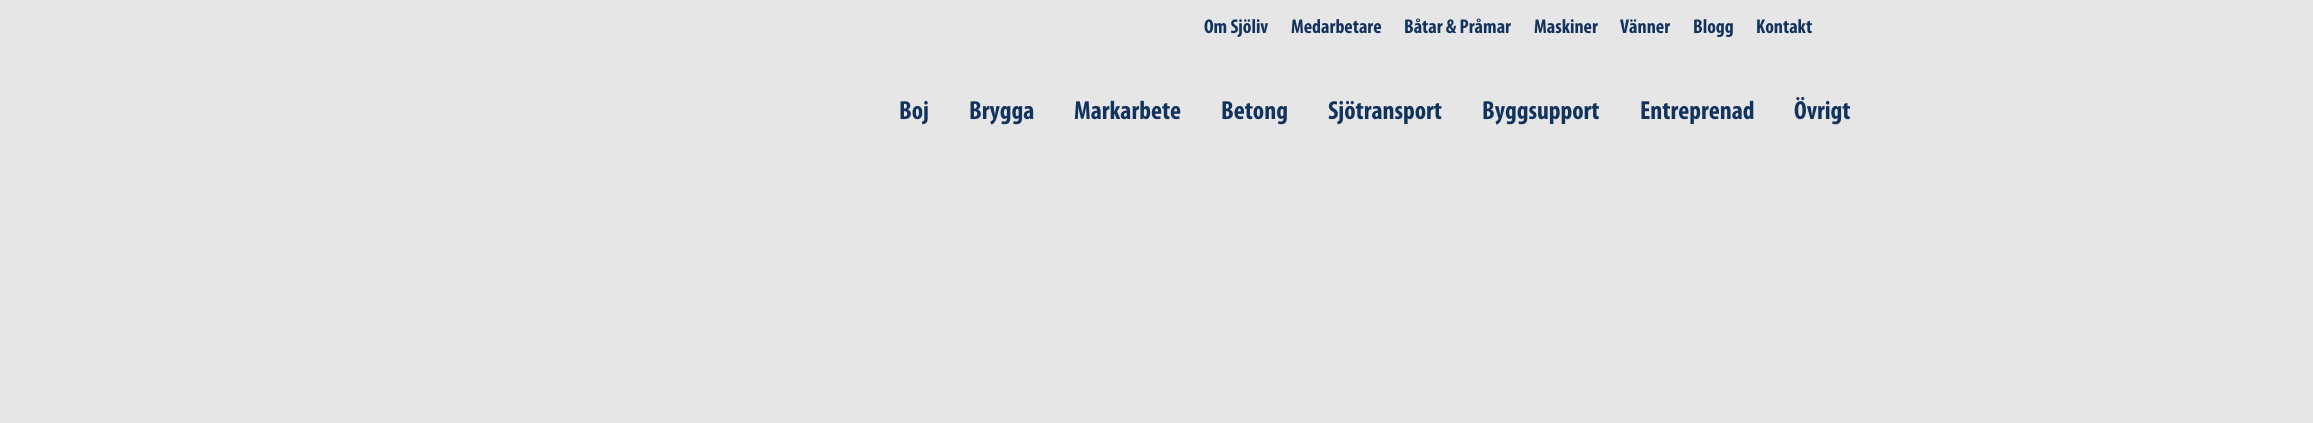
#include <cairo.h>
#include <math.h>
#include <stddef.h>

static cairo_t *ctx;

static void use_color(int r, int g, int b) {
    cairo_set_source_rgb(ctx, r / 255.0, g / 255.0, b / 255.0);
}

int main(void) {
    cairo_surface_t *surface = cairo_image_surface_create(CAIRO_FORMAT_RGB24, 2313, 423);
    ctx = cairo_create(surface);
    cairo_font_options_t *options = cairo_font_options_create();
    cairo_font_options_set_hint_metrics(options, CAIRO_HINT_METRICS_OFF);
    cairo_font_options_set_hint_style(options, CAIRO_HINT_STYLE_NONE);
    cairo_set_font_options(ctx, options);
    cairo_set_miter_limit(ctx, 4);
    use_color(230, 230, 230);
    cairo_paint(ctx);
    cairo_select_font_face(ctx, "Myriad", CAIRO_FONT_SLANT_NORMAL, CAIRO_FONT_WEIGHT_BOLD);
    cairo_set_font_size(ctx, 20);
    use_color(18, 51, 93);
    cairo_move_to(ctx, 1204, 33);
    cairo_show_text(ctx, "Om Sjöliv");
    cairo_move_to(ctx, 1291, 33);
    cairo_show_text(ctx, "Medarbetare");
    cairo_move_to(ctx, 1404, 33);
    cairo_show_text(ctx, "Båtar & Pråmar");
    cairo_move_to(ctx, 1534, 33);
    cairo_show_text(ctx, "Maskiner");
    cairo_move_to(ctx, 1620, 33);
    cairo_show_text(ctx, "Vänner");
    cairo_move_to(ctx, 1693, 33);
    cairo_show_text(ctx, "Blogg");
    cairo_move_to(ctx, 1756, 33);
    cairo_show_text(ctx, "Kontakt");
    cairo_set_font_size(ctx, 26.25);
    cairo_move_to(ctx, 899, 119);
    cairo_show_text(ctx, "Boj");
    cairo_move_to(ctx, 969, 119);
    cairo_show_text(ctx, "Brygga");
    cairo_move_to(ctx, 1074, 119);
    cairo_show_text(ctx, "Markarbete");
    cairo_move_to(ctx, 1221, 119);
    cairo_show_text(ctx, "Betong");
    cairo_move_to(ctx, 1328, 119);
    cairo_show_text(ctx, "Sjötransport");
    cairo_move_to(ctx, 1482, 119);
    cairo_show_text(ctx, "Byggsupport");
    cairo_move_to(ctx, 1640, 119);
    cairo_show_text(ctx, "Entreprenad");
    cairo_move_to(ctx, 1794, 119);
    cairo_show_text(ctx, "Övrigt");
    cairo_surface_write_to_png(surface, "result.png");
    cairo_font_options_destroy(options);
    cairo_destroy(ctx);
    cairo_surface_destroy(surface);
    return 0;
}
